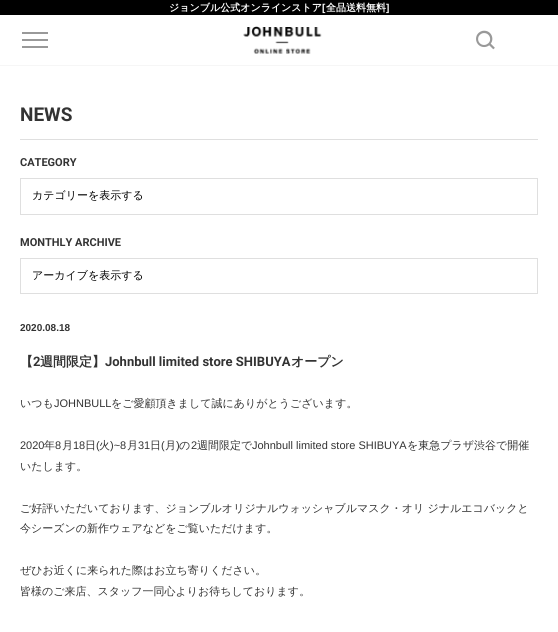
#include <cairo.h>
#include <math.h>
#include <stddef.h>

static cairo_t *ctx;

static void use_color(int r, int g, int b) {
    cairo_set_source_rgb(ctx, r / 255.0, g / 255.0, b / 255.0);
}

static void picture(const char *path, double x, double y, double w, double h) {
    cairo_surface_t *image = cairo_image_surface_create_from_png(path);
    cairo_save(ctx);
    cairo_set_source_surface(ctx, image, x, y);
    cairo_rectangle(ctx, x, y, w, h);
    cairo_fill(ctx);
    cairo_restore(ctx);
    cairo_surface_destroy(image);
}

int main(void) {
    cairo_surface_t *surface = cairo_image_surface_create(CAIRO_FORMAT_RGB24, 558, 632);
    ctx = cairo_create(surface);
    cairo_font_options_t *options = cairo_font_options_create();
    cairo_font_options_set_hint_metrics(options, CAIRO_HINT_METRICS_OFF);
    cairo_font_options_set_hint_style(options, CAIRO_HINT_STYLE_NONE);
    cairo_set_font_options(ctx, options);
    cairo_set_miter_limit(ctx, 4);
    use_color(255, 255, 255);
    cairo_paint(ctx);
    use_color(246, 246, 246);
    cairo_rectangle(ctx, 0, 65, 558, 1);
    cairo_fill(ctx);
    use_color(0, 0, 0);
    cairo_rectangle(ctx, 0, 0, 558, 15);
    cairo_fill(ctx);
    cairo_select_font_face(ctx, "WenQuanYi Zen Hei", CAIRO_FONT_SLANT_NORMAL, CAIRO_FONT_WEIGHT_BOLD);
    cairo_set_font_size(ctx, 10);
    use_color(255, 255, 255);
    cairo_move_to(ctx, 169, 11);
    cairo_show_text(ctx, "ジョンブル公式オンラインストア");
    cairo_select_font_face(ctx, "Liberation Sans", CAIRO_FONT_SLANT_NORMAL, CAIRO_FONT_WEIGHT_BOLD);
    cairo_move_to(ctx, 322, 11);
    cairo_show_text(ctx, "[");
    cairo_select_font_face(ctx, "WenQuanYi Zen Hei", CAIRO_FONT_SLANT_NORMAL, CAIRO_FONT_WEIGHT_BOLD);
    cairo_move_to(ctx, 326, 11);
    cairo_show_text(ctx, "全品送料無料");
    cairo_select_font_face(ctx, "Liberation Sans", CAIRO_FONT_SLANT_NORMAL, CAIRO_FONT_WEIGHT_BOLD);
    cairo_move_to(ctx, 386, 11);
    cairo_show_text(ctx, "]");
    use_color(153, 153, 153);
    cairo_rectangle(ctx, 22, 39, 26, 2);
    cairo_fill(ctx);
    cairo_rectangle(ctx, 22, 32, 26, 2);
    cairo_fill(ctx);
    cairo_rectangle(ctx, 22, 46, 26, 2);
    cairo_fill(ctx);
    picture("img1.png", 243, 26, 79, 28);
    picture("img2.png", 476, 30, 19, 20);
    use_color(223, 223, 223);
    cairo_rectangle(ctx, 20, 139, 518, 1);
    cairo_fill(ctx);
    cairo_select_font_face(ctx, "Roboto", CAIRO_FONT_SLANT_NORMAL, CAIRO_FONT_WEIGHT_BOLD);
    cairo_set_font_size(ctx, 19);
    use_color(51, 51, 51);
    cairo_move_to(ctx, 20, 121);
    cairo_show_text(ctx, "NEWS");
    cairo_set_font_size(ctx, 11);
    cairo_move_to(ctx, 20, 166);
    cairo_show_text(ctx, "CATEGORY");
    cairo_rectangle(ctx, 20.5, 178.5, 517, 36);
    use_color(223, 223, 223);
    cairo_set_line_width(ctx, 1);
    cairo_stroke(ctx);
    cairo_select_font_face(ctx, "WenQuanYi Zen Hei Medium", CAIRO_FONT_SLANT_NORMAL, CAIRO_FONT_WEIGHT_NORMAL);
    use_color(0, 0, 0);
    cairo_move_to(ctx, 32, 199);
    cairo_show_text(ctx, "カテゴリーを表示する");
    cairo_select_font_face(ctx, "Roboto", CAIRO_FONT_SLANT_NORMAL, CAIRO_FONT_WEIGHT_BOLD);
    use_color(51, 51, 51);
    cairo_move_to(ctx, 20, 246);
    cairo_show_text(ctx, "MONTHLY ARCHIVE");
    cairo_rectangle(ctx, 20.5, 258.5, 517, 35);
    use_color(223, 223, 223);
    cairo_stroke(ctx);
    cairo_select_font_face(ctx, "WenQuanYi Zen Hei Medium", CAIRO_FONT_SLANT_NORMAL, CAIRO_FONT_WEIGHT_NORMAL);
    use_color(0, 0, 0);
    cairo_move_to(ctx, 32, 279);
    cairo_show_text(ctx, "アーカイブを表示する");
    cairo_select_font_face(ctx, "Liberation Sans", CAIRO_FONT_SLANT_NORMAL, CAIRO_FONT_WEIGHT_BOLD);
    cairo_set_font_size(ctx, 10);
    use_color(51, 51, 51);
    cairo_move_to(ctx, 20, 331);
    cairo_show_text(ctx, "2020.08.18");
    cairo_select_font_face(ctx, "WenQuanYi Zen Hei", CAIRO_FONT_SLANT_NORMAL, CAIRO_FONT_WEIGHT_BOLD);
    cairo_set_font_size(ctx, 13);
    cairo_move_to(ctx, 20, 366);
    cairo_show_text(ctx, "【");
    cairo_select_font_face(ctx, "Roboto", CAIRO_FONT_SLANT_NORMAL, CAIRO_FONT_WEIGHT_BOLD);
    cairo_move_to(ctx, 33, 366);
    cairo_show_text(ctx, "2");
    cairo_select_font_face(ctx, "WenQuanYi Zen Hei", CAIRO_FONT_SLANT_NORMAL, CAIRO_FONT_WEIGHT_BOLD);
    cairo_move_to(ctx, 40, 366);
    cairo_show_text(ctx, "週間限定】");
    cairo_select_font_face(ctx, "Roboto", CAIRO_FONT_SLANT_NORMAL, CAIRO_FONT_WEIGHT_BOLD);
    cairo_move_to(ctx, 105, 366);
    cairo_show_text(ctx, "Johnbull limited store SHIBUYA");
    cairo_select_font_face(ctx, "WenQuanYi Zen Hei", CAIRO_FONT_SLANT_NORMAL, CAIRO_FONT_WEIGHT_BOLD);
    cairo_move_to(ctx, 291, 366);
    cairo_show_text(ctx, "オープン");
    cairo_select_font_face(ctx, "WenQuanYi Zen Hei Medium", CAIRO_FONT_SLANT_NORMAL, CAIRO_FONT_WEIGHT_NORMAL);
    cairo_set_font_size(ctx, 11);
    cairo_move_to(ctx, 20, 407);
    cairo_show_text(ctx, "いつも");
    cairo_select_font_face(ctx, "Liberation Sans", CAIRO_FONT_SLANT_NORMAL, CAIRO_FONT_WEIGHT_NORMAL);
    cairo_move_to(ctx, 54, 407);
    cairo_show_text(ctx, "JOHNBULL");
    cairo_select_font_face(ctx, "WenQuanYi Zen Hei Medium", CAIRO_FONT_SLANT_NORMAL, CAIRO_FONT_WEIGHT_NORMAL);
    cairo_move_to(ctx, 111, 407);
    cairo_show_text(ctx, "をご愛顧頂きまして誠にありがとうございます。");
    cairo_select_font_face(ctx, "Liberation Sans", CAIRO_FONT_SLANT_NORMAL, CAIRO_FONT_WEIGHT_NORMAL);
    cairo_move_to(ctx, 20, 449);
    cairo_show_text(ctx, "2020");
    cairo_select_font_face(ctx, "WenQuanYi Zen Hei Medium", CAIRO_FONT_SLANT_NORMAL, CAIRO_FONT_WEIGHT_NORMAL);
    cairo_move_to(ctx, 44, 449);
    cairo_show_text(ctx, "年");
    cairo_select_font_face(ctx, "Liberation Sans", CAIRO_FONT_SLANT_NORMAL, CAIRO_FONT_WEIGHT_NORMAL);
    cairo_move_to(ctx, 55, 449);
    cairo_show_text(ctx, "8");
    cairo_select_font_face(ctx, "WenQuanYi Zen Hei Medium", CAIRO_FONT_SLANT_NORMAL, CAIRO_FONT_WEIGHT_NORMAL);
    cairo_move_to(ctx, 62, 449);
    cairo_show_text(ctx, "月");
    cairo_select_font_face(ctx, "Liberation Sans", CAIRO_FONT_SLANT_NORMAL, CAIRO_FONT_WEIGHT_NORMAL);
    cairo_move_to(ctx, 73, 449);
    cairo_show_text(ctx, "18");
    cairo_select_font_face(ctx, "WenQuanYi Zen Hei Medium", CAIRO_FONT_SLANT_NORMAL, CAIRO_FONT_WEIGHT_NORMAL);
    cairo_move_to(ctx, 85, 449);
    cairo_show_text(ctx, "日");
    cairo_select_font_face(ctx, "Liberation Sans", CAIRO_FONT_SLANT_NORMAL, CAIRO_FONT_WEIGHT_NORMAL);
    cairo_move_to(ctx, 96, 449);
    cairo_show_text(ctx, "(");
    cairo_select_font_face(ctx, "WenQuanYi Zen Hei Medium", CAIRO_FONT_SLANT_NORMAL, CAIRO_FONT_WEIGHT_NORMAL);
    cairo_move_to(ctx, 99, 449);
    cairo_show_text(ctx, "火");
    cairo_select_font_face(ctx, "Liberation Sans", CAIRO_FONT_SLANT_NORMAL, CAIRO_FONT_WEIGHT_NORMAL);
    cairo_move_to(ctx, 110, 449);
    cairo_show_text(ctx, ")~8");
    cairo_select_font_face(ctx, "WenQuanYi Zen Hei Medium", CAIRO_FONT_SLANT_NORMAL, CAIRO_FONT_WEIGHT_NORMAL);
    cairo_move_to(ctx, 127, 449);
    cairo_show_text(ctx, "月");
    cairo_select_font_face(ctx, "Liberation Sans", CAIRO_FONT_SLANT_NORMAL, CAIRO_FONT_WEIGHT_NORMAL);
    cairo_move_to(ctx, 138, 449);
    cairo_show_text(ctx, "31");
    cairo_select_font_face(ctx, "WenQuanYi Zen Hei Medium", CAIRO_FONT_SLANT_NORMAL, CAIRO_FONT_WEIGHT_NORMAL);
    cairo_move_to(ctx, 150, 449);
    cairo_show_text(ctx, "日");
    cairo_select_font_face(ctx, "Liberation Sans", CAIRO_FONT_SLANT_NORMAL, CAIRO_FONT_WEIGHT_NORMAL);
    cairo_move_to(ctx, 161, 449);
    cairo_show_text(ctx, "(");
    cairo_select_font_face(ctx, "WenQuanYi Zen Hei Medium", CAIRO_FONT_SLANT_NORMAL, CAIRO_FONT_WEIGHT_NORMAL);
    cairo_move_to(ctx, 165, 449);
    cairo_show_text(ctx, "月");
    cairo_select_font_face(ctx, "Liberation Sans", CAIRO_FONT_SLANT_NORMAL, CAIRO_FONT_WEIGHT_NORMAL);
    cairo_move_to(ctx, 176, 449);
    cairo_show_text(ctx, ")");
    cairo_select_font_face(ctx, "WenQuanYi Zen Hei Medium", CAIRO_FONT_SLANT_NORMAL, CAIRO_FONT_WEIGHT_NORMAL);
    cairo_move_to(ctx, 179, 449);
    cairo_show_text(ctx, "の");
    cairo_select_font_face(ctx, "Liberation Sans", CAIRO_FONT_SLANT_NORMAL, CAIRO_FONT_WEIGHT_NORMAL);
    cairo_move_to(ctx, 191, 449);
    cairo_show_text(ctx, "2");
    cairo_select_font_face(ctx, "WenQuanYi Zen Hei Medium", CAIRO_FONT_SLANT_NORMAL, CAIRO_FONT_WEIGHT_NORMAL);
    cairo_move_to(ctx, 197, 449);
    cairo_show_text(ctx, "週間限定で");
    cairo_select_font_face(ctx, "Liberation Sans", CAIRO_FONT_SLANT_NORMAL, CAIRO_FONT_WEIGHT_NORMAL);
    cairo_move_to(ctx, 252, 449);
    cairo_show_text(ctx, "Johnbull limited store SHIBUYA");
    cairo_select_font_face(ctx, "WenQuanYi Zen Hei Medium", CAIRO_FONT_SLANT_NORMAL, CAIRO_FONT_WEIGHT_NORMAL);
    cairo_move_to(ctx, 407, 449);
    cairo_show_text(ctx, "を東急プラザ渋谷で開催");
    cairo_move_to(ctx, 20, 470);
    cairo_show_text(ctx, "いたします。");
    cairo_move_to(ctx, 20, 512);
    cairo_show_text(ctx, "ご好評いただいております、ジョンブルオリジナルウォッシャブルマスク・オリ ジナルエコバックと");
    cairo_move_to(ctx, 20, 532);
    cairo_show_text(ctx, "今シーズンの新作ウェアなどをご覧いただけます。");
    cairo_move_to(ctx, 20, 574);
    cairo_show_text(ctx, "ぜひお近くに来られた際はお立ち寄りください。");
    cairo_move_to(ctx, 20, 595);
    cairo_show_text(ctx, "皆様のご来店、スタッフ一同心よりお待ちしております。");
    cairo_surface_write_to_png(surface, "result.png");
    cairo_font_options_destroy(options);
    cairo_destroy(ctx);
    cairo_surface_destroy(surface);
    return 0;
}
